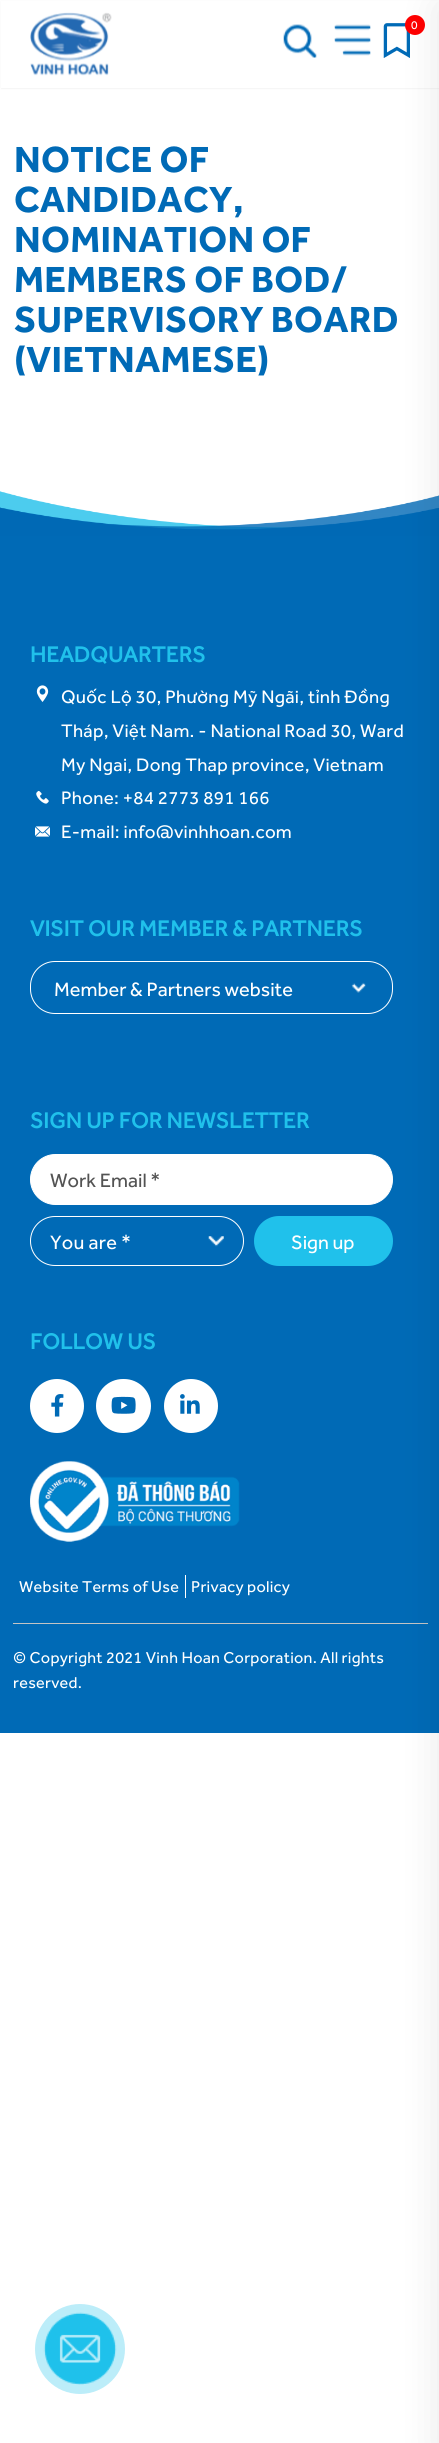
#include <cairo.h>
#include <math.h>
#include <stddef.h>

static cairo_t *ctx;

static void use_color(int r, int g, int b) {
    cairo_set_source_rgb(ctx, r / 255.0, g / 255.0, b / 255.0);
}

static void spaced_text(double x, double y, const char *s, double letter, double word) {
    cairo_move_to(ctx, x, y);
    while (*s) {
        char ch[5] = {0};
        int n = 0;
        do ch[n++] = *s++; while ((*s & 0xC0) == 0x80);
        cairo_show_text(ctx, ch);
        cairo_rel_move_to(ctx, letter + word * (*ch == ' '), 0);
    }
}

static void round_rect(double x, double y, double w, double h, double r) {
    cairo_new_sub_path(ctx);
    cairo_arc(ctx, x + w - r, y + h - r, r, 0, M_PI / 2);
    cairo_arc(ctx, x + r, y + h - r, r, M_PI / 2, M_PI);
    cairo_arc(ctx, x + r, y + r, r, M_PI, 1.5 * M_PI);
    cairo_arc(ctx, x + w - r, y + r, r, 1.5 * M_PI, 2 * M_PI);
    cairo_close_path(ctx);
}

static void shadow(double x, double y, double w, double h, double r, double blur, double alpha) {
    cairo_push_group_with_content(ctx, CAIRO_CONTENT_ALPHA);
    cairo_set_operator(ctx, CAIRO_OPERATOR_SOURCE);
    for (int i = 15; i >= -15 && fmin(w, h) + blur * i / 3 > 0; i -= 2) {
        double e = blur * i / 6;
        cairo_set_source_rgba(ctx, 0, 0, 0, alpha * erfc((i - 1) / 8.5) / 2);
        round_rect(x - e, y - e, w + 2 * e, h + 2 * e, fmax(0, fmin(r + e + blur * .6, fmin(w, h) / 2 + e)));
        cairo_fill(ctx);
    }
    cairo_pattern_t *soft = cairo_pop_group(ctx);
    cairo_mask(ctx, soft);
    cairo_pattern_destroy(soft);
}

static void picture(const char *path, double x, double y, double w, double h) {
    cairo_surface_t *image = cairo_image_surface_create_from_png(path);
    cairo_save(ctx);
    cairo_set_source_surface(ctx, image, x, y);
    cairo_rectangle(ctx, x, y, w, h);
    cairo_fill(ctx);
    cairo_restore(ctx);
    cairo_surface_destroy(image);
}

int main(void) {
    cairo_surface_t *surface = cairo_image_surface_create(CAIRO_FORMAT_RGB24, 439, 2443);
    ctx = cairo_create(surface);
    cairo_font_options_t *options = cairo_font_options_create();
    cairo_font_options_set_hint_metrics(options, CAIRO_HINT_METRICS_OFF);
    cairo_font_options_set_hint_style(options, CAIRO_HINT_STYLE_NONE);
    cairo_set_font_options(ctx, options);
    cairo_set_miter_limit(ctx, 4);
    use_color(255, 255, 255);
    cairo_paint(ctx);
    use_color(245, 245, 245);
    shadow(1, 1, 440, 88, 0, 0.5, 1);
    use_color(255, 255, 255);
    cairo_rectangle(ctx, 1, 1, 438, 87);
    cairo_fill(ctx);
    picture("img4.png", 383, 23, 27, 35);
    use_color(255, 0, 0);
    cairo_arc(ctx, 415, 25, 10, 0, 2 * M_PI);
    cairo_fill(ctx);
    picture("img5.png", 0, 491, 439, 45);
    use_color(0, 106, 182);
    cairo_rectangle(ctx, 0, 536, 439, 1197);
    cairo_fill(ctx);
    picture("img9.png", 351, 982, 15, 11);
    round_rect(30.5, 961.5, 362, 52, 24.5);
    use_color(255, 255, 255);
    cairo_set_line_width(ctx, 1);
    cairo_stroke(ctx);
    round_rect(30.5, 1154.5, 362, 50, 25);
    cairo_fill_preserve(ctx);
    cairo_stroke(ctx);
    use_color(32, 193, 235);
    round_rect(254, 1216, 139, 50, 25);
    cairo_fill(ctx);
    use_color(196, 196, 196);
    cairo_rectangle(ctx, 13, 1623, 415, 1);
    cairo_fill(ctx);
    use_color(0, 0, 0);
    shadow(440, 6, 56, 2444, 0, 19, 0.1);
    picture("img1.png", 30, 12, 82, 64);
    picture("img2.png", 283, 24, 34, 34);
    picture("img3.png", 334, 24, 37, 32);
    cairo_select_font_face(ctx, "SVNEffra", CAIRO_FONT_SLANT_NORMAL, CAIRO_FONT_WEIGHT_NORMAL);
    cairo_set_font_size(ctx, 12);
    use_color(255, 255, 255);
    spaced_text(411, 29, "0", 0.25, 0);
    cairo_select_font_face(ctx, "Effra", CAIRO_FONT_SLANT_NORMAL, CAIRO_FONT_WEIGHT_BOLD);
    cairo_set_font_size(ctx, 37.5);
    use_color(0, 106, 182);
    spaced_text(14, 172, "NOTICE OF", 0.25, 0);
    spaced_text(14, 212, "CANDIDACY,", 0.25, 0);
    spaced_text(14, 252, "NOMINATION OF", 0.25, 0);
    spaced_text(14, 292, "MEMBERS OF BOD/", 0.25, 0);
    spaced_text(14, 332, "SUPERVISORY BOARD", 0.25, 0);
    spaced_text(14, 372, "(VIETNAMESE)", 0.25, 0);
    cairo_select_font_face(ctx, "SVNEffra", CAIRO_FONT_SLANT_NORMAL, CAIRO_FONT_WEIGHT_BOLD);
    cairo_set_font_size(ctx, 22.5);
    use_color(32, 193, 235);
    spaced_text(30, 662, "HEADQUARTERS", 0.25, 0);
    picture("img6.png", 36, 685, 13, 17);
    cairo_select_font_face(ctx, "SVNEffra", CAIRO_FONT_SLANT_NORMAL, CAIRO_FONT_WEIGHT_NORMAL);
    cairo_set_font_size(ctx, 18.75);
    use_color(255, 255, 255);
    spaced_text(61, 703, "Quốc Lộ 30, Phường Mỹ Ngãi, tỉnh Đồng", 0.25, 0);
    spaced_text(61, 737, "Tháp, Việt Nam. - National Road 30, Ward", 0.25, 0);
    spaced_text(61, 771, "My Ngai, Dong Thap province, Vietnam", 0.25, 0);
    picture("img7.png", 36, 790, 13, 14);
    spaced_text(61, 804, "Phone: +84 2773 891 166", 0.25, 0);
    picture("img8.png", 35, 826, 15, 11);
    spaced_text(61, 838, "E-mail: info@vinhhoan.com", 0.25, 0);
    cairo_select_font_face(ctx, "SVNEffra", CAIRO_FONT_SLANT_NORMAL, CAIRO_FONT_WEIGHT_BOLD);
    cairo_set_font_size(ctx, 22.5);
    use_color(32, 193, 235);
    spaced_text(30, 936, "VISIT OUR MEMBER & PARTNERS", 0.25, 0);
    cairo_select_font_face(ctx, "SVNEffra", CAIRO_FONT_SLANT_NORMAL, CAIRO_FONT_WEIGHT_NORMAL);
    cairo_set_font_size(ctx, 20);
    use_color(255, 255, 255);
    cairo_move_to(ctx, 54, 996);
    cairo_show_text(ctx, "Member & Partners website");
    cairo_select_font_face(ctx, "SVNEffra", CAIRO_FONT_SLANT_NORMAL, CAIRO_FONT_WEIGHT_BOLD);
    cairo_set_font_size(ctx, 22.5);
    use_color(32, 193, 235);
    spaced_text(30, 1128, "SIGN UP FOR NEWSLETTER", 0.25, 0);
    cairo_select_font_face(ctx, "SVNEffra", CAIRO_FONT_SLANT_NORMAL, CAIRO_FONT_WEIGHT_NORMAL);
    cairo_set_font_size(ctx, 20);
    use_color(83, 83, 83);
    cairo_move_to(ctx, 50, 1187);
    cairo_show_text(ctx, "Work Email *");
    picture("img10.png", 208, 1236, 16, 11);
    round_rect(30.5, 1216.5, 213, 49, 24.5);
    use_color(255, 255, 255);
    cairo_stroke(ctx);
    spaced_text(50, 1249, "You are *", 0.25, 0);
    cairo_move_to(ctx, 291, 1249);
    cairo_show_text(ctx, "Sign up");
    cairo_select_font_face(ctx, "SVNEffra", CAIRO_FONT_SLANT_NORMAL, CAIRO_FONT_WEIGHT_BOLD);
    cairo_set_font_size(ctx, 22.5);
    use_color(32, 193, 235);
    spaced_text(30, 1349, "FOLLOW US", 0.25, 0);
    use_color(255, 255, 255);
    cairo_new_path(ctx);
    cairo_arc(ctx, 57, 1406, 27, 0, 2 * M_PI);
    cairo_fill(ctx);
    picture("img11.png", 51, 1394, 13, 23);
    round_rect(96, 1379, 55, 54, 27);
    cairo_fill(ctx);
    picture("img12.png", 111, 1396, 25, 18);
    cairo_arc(ctx, 191, 1406, 27, 0, 2 * M_PI);
    cairo_fill(ctx);
    picture("img13.png", 180, 1394, 20, 20);
    picture("img14.png", 30, 1461, 210, 81);
    cairo_select_font_face(ctx, "SVNEffra", CAIRO_FONT_SLANT_NORMAL, CAIRO_FONT_WEIGHT_NORMAL);
    cairo_set_font_size(ctx, 16.25);
    spaced_text(19, 1592, "Website Terms of Use", 0.25, 0);
    cairo_rectangle(ctx, 185, 1575, 1, 23);
    cairo_fill(ctx);
    spaced_text(191, 1592, "Privacy policy", 0.25, 0);
    spaced_text(13, 1663, "© Copyright 2021 Vinh Hoan Corporation. All rights", 0.25, 0);
    spaced_text(13, 1688, "reserved.", 0.25, 0);
    picture("img15.png", 43, 2312, 74, 73);
    cairo_set_source_rgba(ctx, 0.125, 0.757, 0.922, 0.3);
    cairo_arc(ctx, 80, 2349, 45, 0, 2 * M_PI);
    cairo_fill(ctx);
    cairo_surface_write_to_png(surface, "result.png");
    cairo_font_options_destroy(options);
    cairo_destroy(ctx);
    cairo_surface_destroy(surface);
    return 0;
}
